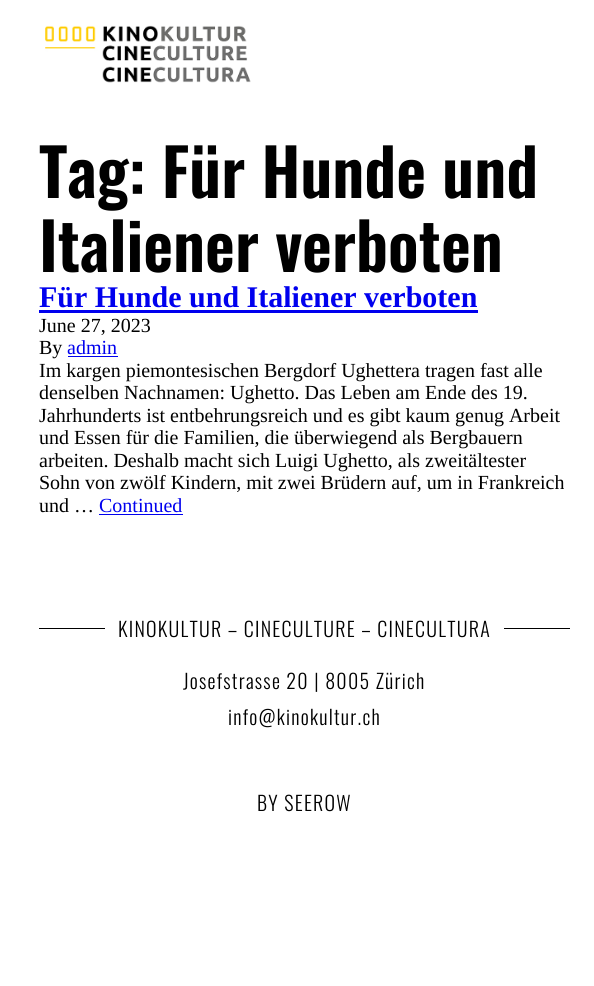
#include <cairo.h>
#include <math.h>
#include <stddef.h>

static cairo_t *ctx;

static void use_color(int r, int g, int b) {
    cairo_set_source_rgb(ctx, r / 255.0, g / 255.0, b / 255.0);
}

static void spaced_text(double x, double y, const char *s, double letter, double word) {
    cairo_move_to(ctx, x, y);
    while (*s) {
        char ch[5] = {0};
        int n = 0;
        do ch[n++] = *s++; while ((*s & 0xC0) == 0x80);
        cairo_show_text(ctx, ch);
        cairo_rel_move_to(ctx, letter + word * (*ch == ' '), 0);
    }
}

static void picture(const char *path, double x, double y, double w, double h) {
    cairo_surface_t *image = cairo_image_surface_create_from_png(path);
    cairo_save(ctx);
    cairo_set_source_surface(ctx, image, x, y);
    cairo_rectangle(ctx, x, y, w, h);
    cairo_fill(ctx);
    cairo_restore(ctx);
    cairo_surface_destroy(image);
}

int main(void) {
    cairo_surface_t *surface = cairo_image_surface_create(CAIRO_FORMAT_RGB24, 594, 986);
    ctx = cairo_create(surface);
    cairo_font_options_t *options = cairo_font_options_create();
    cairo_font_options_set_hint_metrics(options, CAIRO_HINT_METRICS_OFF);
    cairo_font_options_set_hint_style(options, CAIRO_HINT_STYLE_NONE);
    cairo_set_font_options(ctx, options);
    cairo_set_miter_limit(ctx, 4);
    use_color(255, 255, 255);
    cairo_paint(ctx);
    picture("img1.png", 45, 25, 206, 58);
    cairo_select_font_face(ctx, "Oswald SemiBold", CAIRO_FONT_SLANT_NORMAL, CAIRO_FONT_WEIGHT_NORMAL);
    cairo_set_font_size(ctx, 65);
    use_color(0, 0, 0);
    cairo_move_to(ctx, 39, 198);
    cairo_show_text(ctx, "Tag: Für Hunde und");
    cairo_move_to(ctx, 39, 272);
    cairo_show_text(ctx, "Italiener verboten");
    cairo_select_font_face(ctx, "Liberation Serif", CAIRO_FONT_SLANT_NORMAL, CAIRO_FONT_WEIGHT_BOLD);
    cairo_set_font_size(ctx, 30);
    use_color(0, 0, 238);
    cairo_move_to(ctx, 39, 307);
    cairo_show_text(ctx, "Für Hunde und Italiener verboten");
    cairo_rectangle(ctx, 39, 310, 439, 3);
    cairo_fill(ctx);
    cairo_select_font_face(ctx, "Liberation Serif", CAIRO_FONT_SLANT_NORMAL, CAIRO_FONT_WEIGHT_NORMAL);
    cairo_set_font_size(ctx, 20);
    use_color(0, 0, 0);
    cairo_move_to(ctx, 39, 332);
    cairo_show_text(ctx, "June 27, 2023");
    cairo_move_to(ctx, 39, 354);
    cairo_show_text(ctx, "By");
    use_color(0, 0, 238);
    cairo_move_to(ctx, 67, 354);
    cairo_show_text(ctx, "admin");
    cairo_rectangle(ctx, 68, 356, 50, 1);
    cairo_fill(ctx);
    use_color(0, 0, 0);
    cairo_move_to(ctx, 39, 377);
    cairo_show_text(ctx, "Im kargen piemontesischen Bergdorf Ughettera tragen fast alle");
    cairo_move_to(ctx, 39, 399);
    cairo_show_text(ctx, "denselben Nachnamen: Ughetto. Das Leben am Ende des 19.");
    cairo_move_to(ctx, 39, 422);
    cairo_show_text(ctx, "Jahrhunderts ist entbehrungsreich und es gibt kaum genug Arbeit");
    cairo_move_to(ctx, 39, 444);
    cairo_show_text(ctx, "und Essen für die Familien, die überwiegend als Bergbauern");
    cairo_move_to(ctx, 39, 467);
    cairo_show_text(ctx, "arbeiten. Deshalb macht sich Luigi Ughetto, als zweitältester");
    cairo_move_to(ctx, 39, 489);
    cairo_show_text(ctx, "Sohn von zwölf Kindern, mit zwei Brüdern auf, um in Frankreich");
    cairo_move_to(ctx, 39, 512);
    cairo_show_text(ctx, "und …");
    use_color(0, 0, 238);
    cairo_move_to(ctx, 99, 512);
    cairo_show_text(ctx, "Continued");
    cairo_rectangle(ctx, 99, 514, 84, 1);
    cairo_fill(ctx);
    use_color(0, 0, 0);
    cairo_rectangle(ctx, 39, 628, 531, 1);
    cairo_fill(ctx);
    use_color(255, 255, 255);
    cairo_rectangle(ctx, 105, 628, 399, 1);
    cairo_fill(ctx);
    cairo_select_font_face(ctx, "Oswald Light", CAIRO_FONT_SLANT_NORMAL, CAIRO_FONT_WEIGHT_NORMAL);
    use_color(0, 0, 0);
    spaced_text(118, 637, "KINOKULTUR – CINECULTURE – CINECULTURA", 1.25, 0);
    spaced_text(183, 689, "Josefstrasse 20 | 8005 Zürich", 1.25, 0);
    spaced_text(228, 725, "info@kinokultur.ch", 1.25, 0);
    spaced_text(257, 811, "BY SEEROW", 1.25, 0);
    cairo_surface_write_to_png(surface, "result.png");
    cairo_font_options_destroy(options);
    cairo_destroy(ctx);
    cairo_surface_destroy(surface);
    return 0;
}
